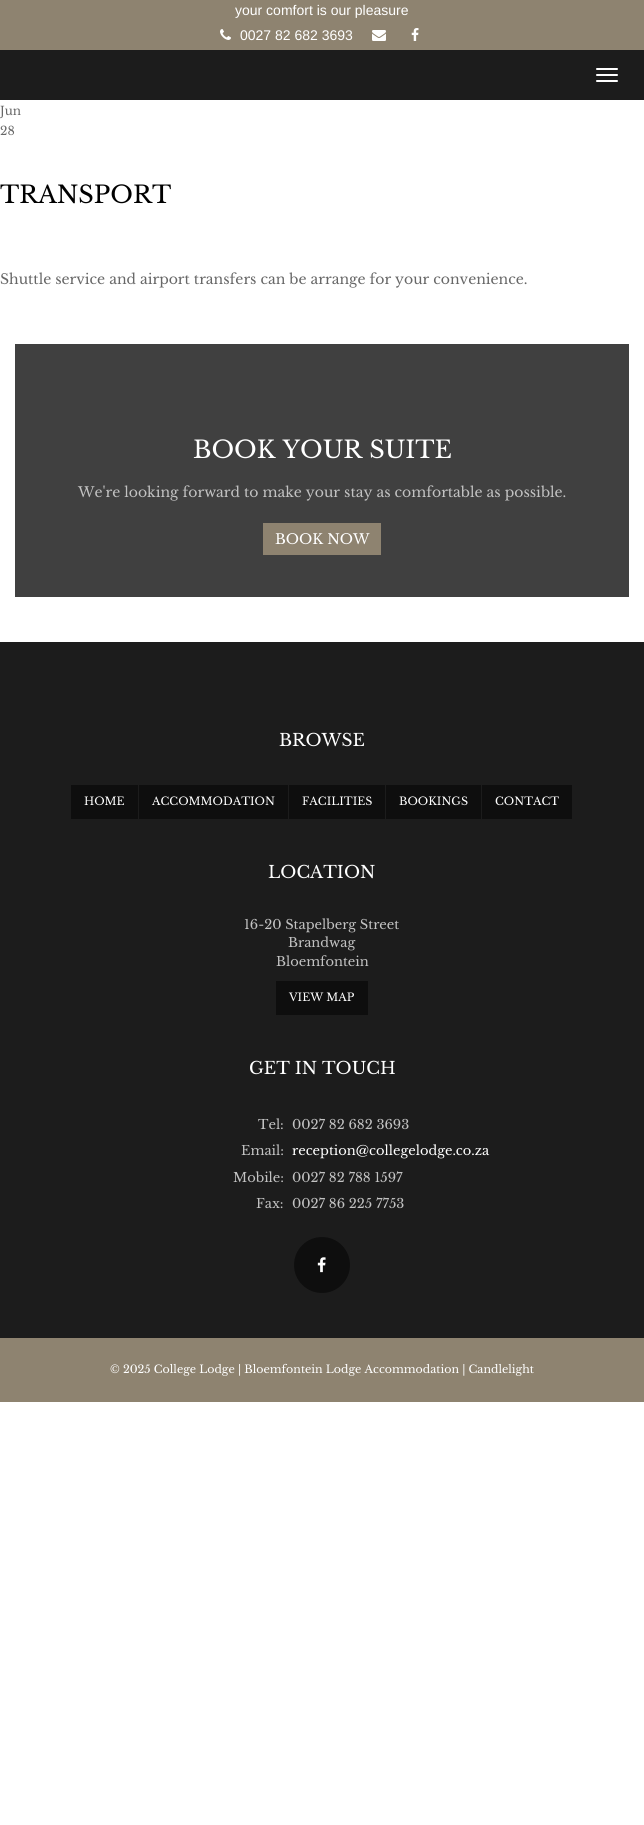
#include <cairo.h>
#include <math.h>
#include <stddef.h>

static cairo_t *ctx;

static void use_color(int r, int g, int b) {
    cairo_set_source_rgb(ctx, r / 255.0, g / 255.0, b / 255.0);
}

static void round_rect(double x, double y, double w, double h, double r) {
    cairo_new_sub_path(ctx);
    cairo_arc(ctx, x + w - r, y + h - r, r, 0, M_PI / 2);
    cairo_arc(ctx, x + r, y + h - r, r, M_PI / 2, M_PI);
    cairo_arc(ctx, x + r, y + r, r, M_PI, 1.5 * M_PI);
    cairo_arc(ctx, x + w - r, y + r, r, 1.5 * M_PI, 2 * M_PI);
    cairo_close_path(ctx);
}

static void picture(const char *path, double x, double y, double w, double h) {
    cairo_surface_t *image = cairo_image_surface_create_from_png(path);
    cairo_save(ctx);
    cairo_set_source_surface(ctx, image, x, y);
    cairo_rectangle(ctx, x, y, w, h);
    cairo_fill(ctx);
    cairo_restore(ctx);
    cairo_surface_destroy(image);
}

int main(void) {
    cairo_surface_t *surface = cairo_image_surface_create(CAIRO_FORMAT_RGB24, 644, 1825);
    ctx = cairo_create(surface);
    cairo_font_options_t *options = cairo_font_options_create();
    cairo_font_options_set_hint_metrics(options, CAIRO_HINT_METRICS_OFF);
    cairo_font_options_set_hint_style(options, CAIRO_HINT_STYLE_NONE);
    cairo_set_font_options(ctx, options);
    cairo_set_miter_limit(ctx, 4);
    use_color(255, 255, 255);
    cairo_paint(ctx);
    use_color(142, 131, 112);
    cairo_rectangle(ctx, 0, 0, 644, 50);
    cairo_fill(ctx);
    cairo_select_font_face(ctx, "Liberation Sans", CAIRO_FONT_SLANT_NORMAL, CAIRO_FONT_WEIGHT_NORMAL);
    cairo_set_font_size(ctx, 14);
    use_color(255, 255, 255);
    cairo_move_to(ctx, 235, 15);
    cairo_show_text(ctx, "your comfort is our pleasure");
    picture("img1.png", 220, 29, 11, 11);
    cairo_move_to(ctx, 240, 40);
    cairo_show_text(ctx, "0027 82 682 3693");
    picture("img2.png", 372, 30, 14, 11);
    picture("img3.png", 411, 28, 8, 13);
    use_color(28, 28, 28);
    cairo_rectangle(ctx, 0, 50, 644, 50);
    cairo_fill(ctx);
    use_color(255, 255, 255);
    round_rect(596, 68, 22, 2, 1);
    cairo_fill(ctx);
    round_rect(596, 74, 22, 2, 1);
    cairo_fill(ctx);
    round_rect(596, 80, 22, 2, 1);
    cairo_fill(ctx);
    cairo_select_font_face(ctx, "Libre Baskerville", CAIRO_FONT_SLANT_NORMAL, CAIRO_FONT_WEIGHT_NORMAL);
    cairo_set_font_size(ctx, 12);
    use_color(103, 103, 103);
    cairo_move_to(ctx, 0, 115);
    cairo_show_text(ctx, "Jun");
    cairo_move_to(ctx, 0, 135);
    cairo_show_text(ctx, "28");
    cairo_set_font_size(ctx, 24);
    use_color(0, 0, 0);
    cairo_move_to(ctx, 0, 203);
    cairo_show_text(ctx, "TRANSPORT");
    cairo_set_font_size(ctx, 14);
    use_color(103, 103, 103);
    cairo_move_to(ctx, 0, 284);
    cairo_show_text(ctx, "Shuttle service and airport transfers can be arrange for your convenience.");
    use_color(64, 64, 64);
    cairo_rectangle(ctx, 15, 344, 614, 253);
    cairo_fill(ctx);
    cairo_set_font_size(ctx, 24);
    use_color(255, 255, 255);
    cairo_move_to(ctx, 193, 458);
    cairo_show_text(ctx, "BOOK YOUR SUITE");
    cairo_set_font_size(ctx, 14);
    use_color(194, 194, 194);
    cairo_move_to(ctx, 78, 497);
    cairo_show_text(ctx, "We're looking forward to make your stay as comfortable as possible.");
    use_color(142, 131, 112);
    cairo_rectangle(ctx, 263, 523, 118, 32);
    cairo_fill(ctx);
    use_color(255, 255, 255);
    cairo_move_to(ctx, 275, 544);
    cairo_show_text(ctx, "BOOK NOW");
    use_color(28, 28, 28);
    cairo_rectangle(ctx, 0, 642, 644, 696);
    cairo_fill(ctx);
    cairo_set_font_size(ctx, 17);
    use_color(255, 255, 255);
    cairo_move_to(ctx, 279, 746);
    cairo_show_text(ctx, "BROWSE");
    use_color(14, 14, 14);
    cairo_rectangle(ctx, 71, 785, 67, 34);
    cairo_fill(ctx);
    cairo_set_font_size(ctx, 11);
    use_color(255, 255, 255);
    cairo_move_to(ctx, 84, 805);
    cairo_show_text(ctx, "HOME");
    use_color(14, 14, 14);
    cairo_rectangle(ctx, 139, 785, 149, 34);
    cairo_fill(ctx);
    use_color(255, 255, 255);
    cairo_move_to(ctx, 152, 805);
    cairo_show_text(ctx, "ACCOMMODATION");
    use_color(14, 14, 14);
    cairo_rectangle(ctx, 289, 785, 96, 34);
    cairo_fill(ctx);
    use_color(255, 255, 255);
    cairo_move_to(ctx, 302, 805);
    cairo_show_text(ctx, "FACILITIES");
    use_color(14, 14, 14);
    cairo_rectangle(ctx, 386, 785, 95, 34);
    cairo_fill(ctx);
    use_color(255, 255, 255);
    cairo_move_to(ctx, 399, 805);
    cairo_show_text(ctx, "BOOKINGS");
    use_color(14, 14, 14);
    cairo_rectangle(ctx, 482, 785, 90, 34);
    cairo_fill(ctx);
    use_color(255, 255, 255);
    cairo_move_to(ctx, 495, 805);
    cairo_show_text(ctx, "CONTACT");
    cairo_set_font_size(ctx, 17);
    cairo_move_to(ctx, 268, 878);
    cairo_show_text(ctx, "LOCATION");
    cairo_set_font_size(ctx, 13);
    use_color(194, 194, 194);
    cairo_move_to(ctx, 244, 929);
    cairo_show_text(ctx, "16-20 Stapelberg Street");
    cairo_move_to(ctx, 288, 947);
    cairo_show_text(ctx, "Brandwag");
    cairo_move_to(ctx, 276, 966);
    cairo_show_text(ctx, "Bloemfontein");
    use_color(14, 14, 14);
    cairo_rectangle(ctx, 276, 981, 92, 34);
    cairo_fill(ctx);
    cairo_set_font_size(ctx, 11);
    use_color(255, 255, 255);
    cairo_move_to(ctx, 289, 1001);
    cairo_show_text(ctx, "VIEW MAP");
    cairo_set_font_size(ctx, 17);
    cairo_move_to(ctx, 249, 1074);
    cairo_show_text(ctx, "GET IN TOUCH");
    cairo_set_font_size(ctx, 13);
    use_color(194, 194, 194);
    cairo_move_to(ctx, 258, 1129);
    cairo_show_text(ctx, "Tel:");
    cairo_move_to(ctx, 292, 1129);
    cairo_show_text(ctx, "0027 82 682 3693");
    cairo_move_to(ctx, 241, 1155);
    cairo_show_text(ctx, "Email:");
    use_color(255, 255, 255);
    cairo_move_to(ctx, 292, 1155);
    cairo_show_text(ctx, "reception@collegelodge.co.za");
    use_color(194, 194, 194);
    cairo_move_to(ctx, 233, 1182);
    cairo_show_text(ctx, "Mobile:");
    cairo_move_to(ctx, 292, 1182);
    cairo_show_text(ctx, "0027 82 788 1597");
    cairo_move_to(ctx, 256, 1208);
    cairo_show_text(ctx, "Fax:");
    cairo_move_to(ctx, 292, 1208);
    cairo_show_text(ctx, "0027 86 225 7753");
    use_color(14, 14, 14);
    cairo_new_path(ctx);
    cairo_arc(ctx, 322, 1265, 28, 0, 2 * M_PI);
    cairo_fill(ctx);
    picture("img4.png", 317, 1257, 9, 16);
    use_color(142, 131, 112);
    cairo_rectangle(ctx, 0, 1338, 644, 64);
    cairo_fill(ctx);
    cairo_set_font_size(ctx, 11);
    use_color(255, 255, 255);
    cairo_move_to(ctx, 110, 1373);
    cairo_show_text(ctx, "© 2025 College Lodge | Bloemfontein Lodge Accommodation | Candlelight");
    cairo_surface_write_to_png(surface, "result.png");
    cairo_font_options_destroy(options);
    cairo_destroy(ctx);
    cairo_surface_destroy(surface);
    return 0;
}
